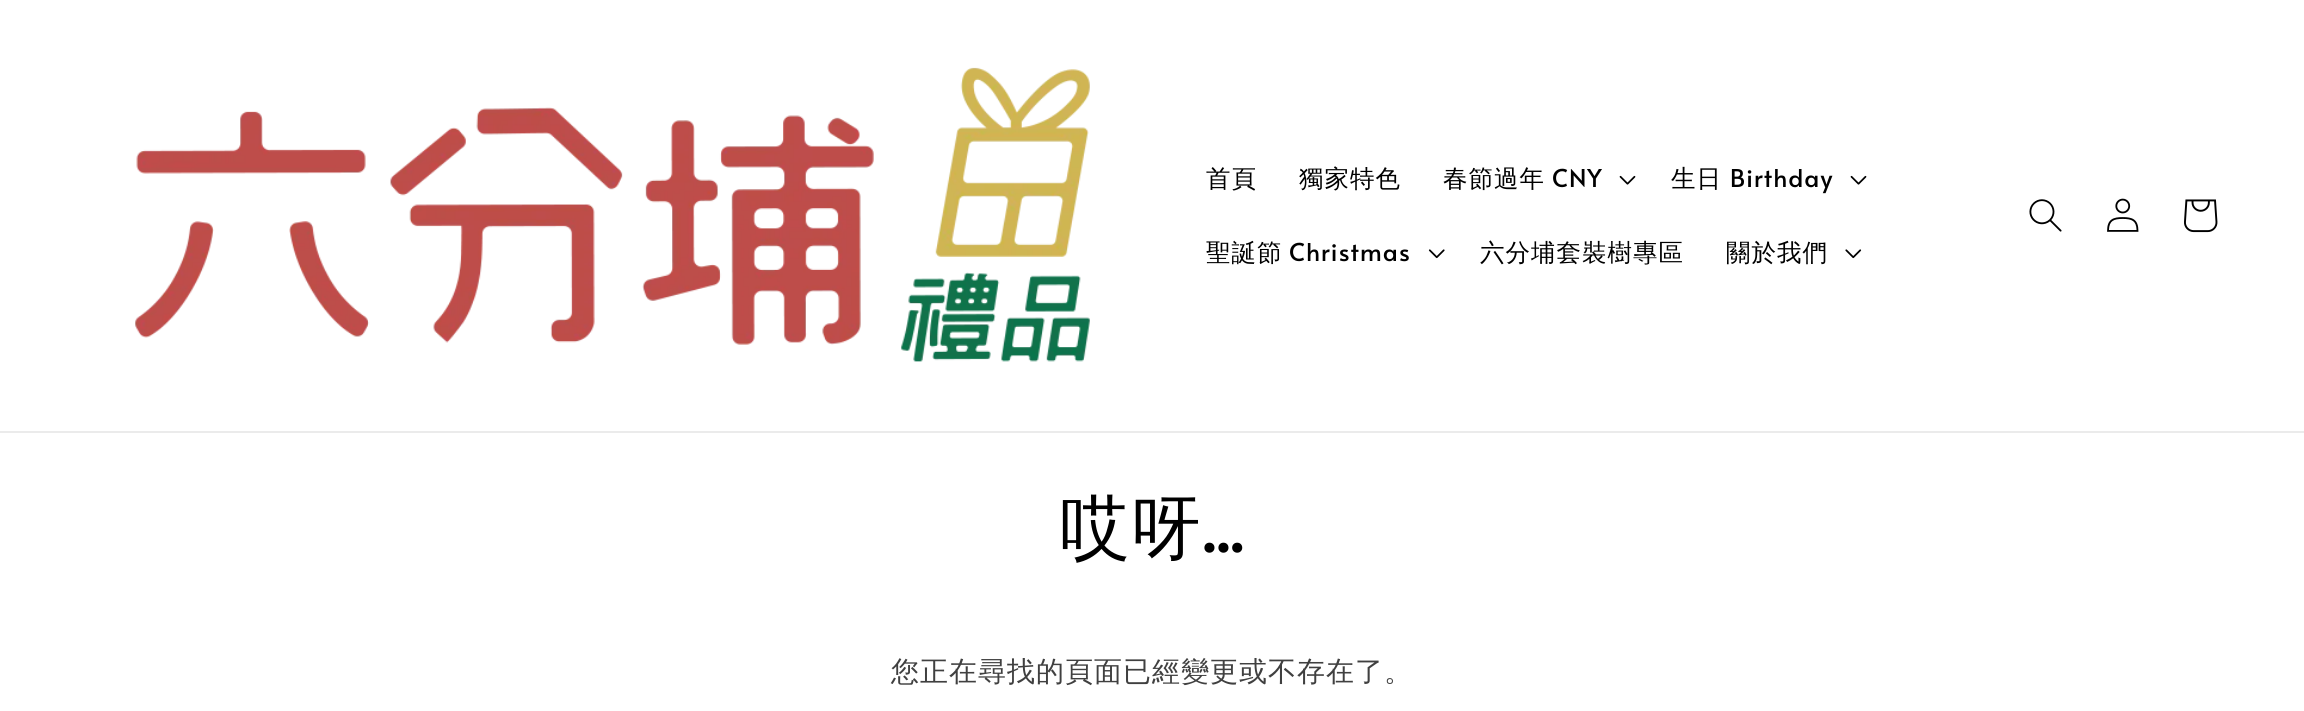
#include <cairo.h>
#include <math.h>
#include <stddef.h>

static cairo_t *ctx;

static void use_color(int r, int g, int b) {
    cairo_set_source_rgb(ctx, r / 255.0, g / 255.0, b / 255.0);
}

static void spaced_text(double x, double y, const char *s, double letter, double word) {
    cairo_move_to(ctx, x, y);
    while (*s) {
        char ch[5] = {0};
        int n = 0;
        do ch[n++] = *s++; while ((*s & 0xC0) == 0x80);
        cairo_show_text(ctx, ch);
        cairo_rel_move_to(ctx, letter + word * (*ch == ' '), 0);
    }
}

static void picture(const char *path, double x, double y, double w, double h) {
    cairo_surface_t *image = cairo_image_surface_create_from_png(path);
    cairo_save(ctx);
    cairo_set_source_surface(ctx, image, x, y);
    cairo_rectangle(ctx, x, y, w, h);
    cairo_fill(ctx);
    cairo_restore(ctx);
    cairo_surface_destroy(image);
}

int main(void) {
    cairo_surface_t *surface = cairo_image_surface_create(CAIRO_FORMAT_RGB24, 2304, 711);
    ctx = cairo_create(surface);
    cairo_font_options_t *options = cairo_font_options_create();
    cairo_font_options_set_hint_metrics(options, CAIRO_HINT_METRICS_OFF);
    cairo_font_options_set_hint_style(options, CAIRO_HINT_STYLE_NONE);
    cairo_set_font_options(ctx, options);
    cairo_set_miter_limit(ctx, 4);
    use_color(255, 255, 255);
    cairo_paint(ctx);
    use_color(235, 235, 235);
    cairo_rectangle(ctx, 0, 431, 2304, 2);
    cairo_fill(ctx);
    picture("img1.png", 135, 67, 955, 295);
    cairo_select_font_face(ctx, "WenQuanYi Zen Hei Medium", CAIRO_FONT_SLANT_NORMAL, CAIRO_FONT_WEIGHT_NORMAL);
    cairo_set_font_size(ctx, 24.5);
    use_color(0, 0, 0);
    spaced_text(1206, 187, "首頁", 1, 0);
    spaced_text(1299, 187, "獨家特色", 1, 0);
    spaced_text(1443, 187, "春節過年", 1, 0);
    cairo_select_font_face(ctx, "Alata", CAIRO_FONT_SLANT_NORMAL, CAIRO_FONT_WEIGHT_NORMAL);
    spaced_text(1552, 187, "CNY", 1, 0);
    picture("img2.png", 1619, 175, 17, 10);
    cairo_select_font_face(ctx, "WenQuanYi Zen Hei Medium", CAIRO_FONT_SLANT_NORMAL, CAIRO_FONT_WEIGHT_NORMAL);
    spaced_text(1671, 187, "生日", 1, 0);
    cairo_select_font_face(ctx, "Alata", CAIRO_FONT_SLANT_NORMAL, CAIRO_FONT_WEIGHT_NORMAL);
    spaced_text(1730, 187, "Birthday", 1, 0);
    picture("img2.png", 1850, 175, 17, 10);
    cairo_select_font_face(ctx, "WenQuanYi Zen Hei Medium", CAIRO_FONT_SLANT_NORMAL, CAIRO_FONT_WEIGHT_NORMAL);
    spaced_text(1206, 261, "聖誕節", 1, 0);
    cairo_select_font_face(ctx, "Alata", CAIRO_FONT_SLANT_NORMAL, CAIRO_FONT_WEIGHT_NORMAL);
    spaced_text(1289, 261, "Christmas", 1, 0);
    picture("img3.png", 1428, 249, 17, 10);
    cairo_select_font_face(ctx, "WenQuanYi Zen Hei Medium", CAIRO_FONT_SLANT_NORMAL, CAIRO_FONT_WEIGHT_NORMAL);
    spaced_text(1480, 261, "六分埔套裝樹專區", 1, 0);
    spaced_text(1726, 261, "關於我們", 1, 0);
    picture("img4.png", 1845, 249, 17, 10);
    picture("img5.png", 2029, 199, 33, 33);
    picture("img6.png", 2107, 198, 32, 34);
    picture("img7.png", 2184, 199, 34, 34);
    cairo_set_font_size(ctx, 70);
    spaced_text(1060, 552, "哎呀", 1, 0);
    cairo_select_font_face(ctx, "Alata", CAIRO_FONT_SLANT_NORMAL, CAIRO_FONT_WEIGHT_NORMAL);
    spaced_text(1203, 552, "...", 1, 0);
    cairo_select_font_face(ctx, "WenQuanYi Zen Hei Medium", CAIRO_FONT_SLANT_NORMAL, CAIRO_FONT_WEIGHT_NORMAL);
    cairo_set_font_size(ctx, 28);
    use_color(64, 64, 64);
    spaced_text(891, 681, "您正在尋找的頁面已經變更或不存在了。", 1, 0);
    cairo_surface_write_to_png(surface, "result.png");
    cairo_font_options_destroy(options);
    cairo_destroy(ctx);
    cairo_surface_destroy(surface);
    return 0;
}
